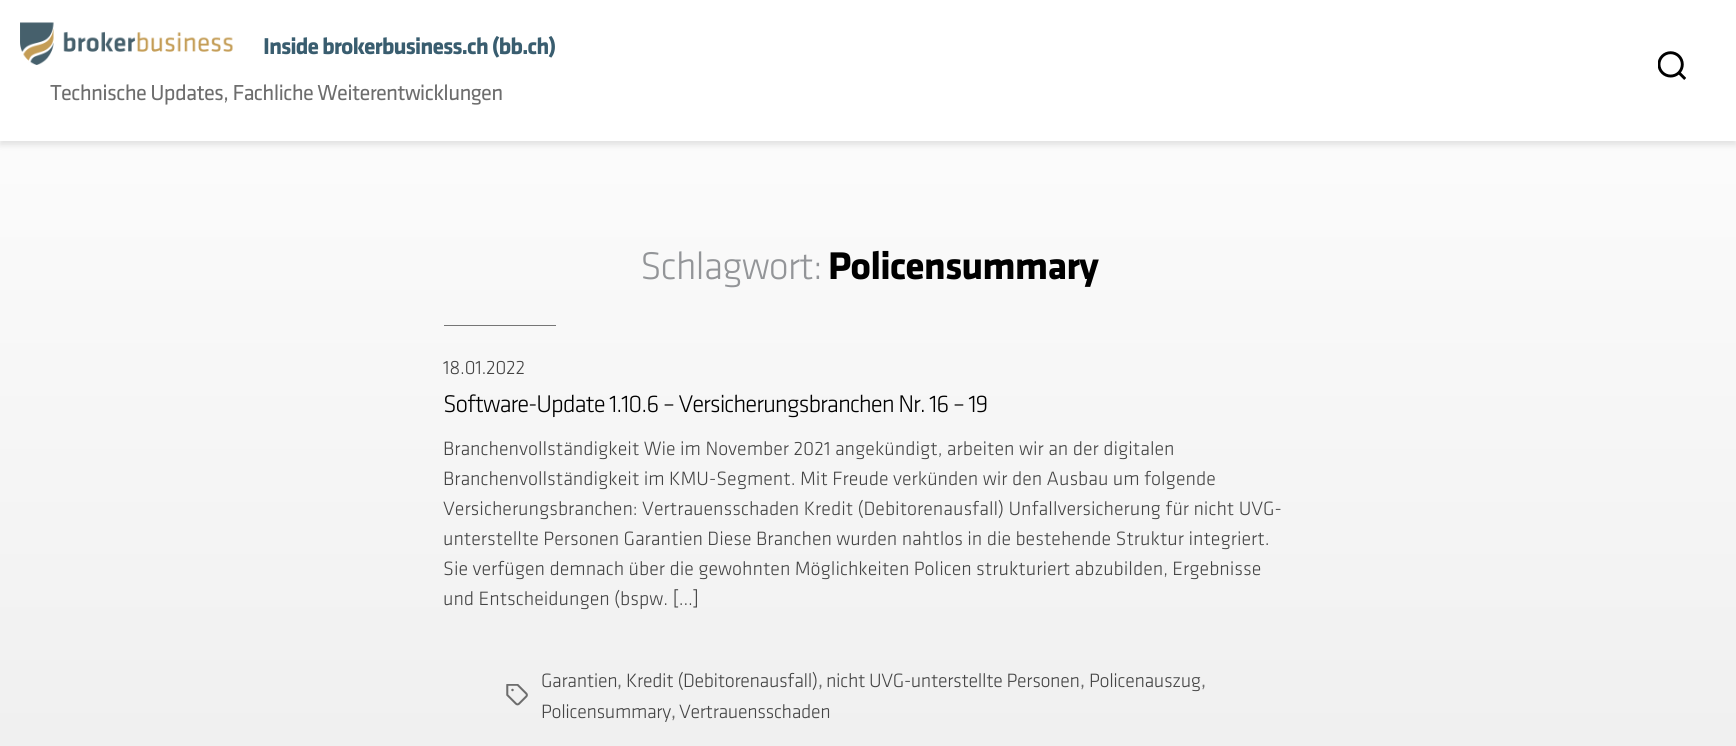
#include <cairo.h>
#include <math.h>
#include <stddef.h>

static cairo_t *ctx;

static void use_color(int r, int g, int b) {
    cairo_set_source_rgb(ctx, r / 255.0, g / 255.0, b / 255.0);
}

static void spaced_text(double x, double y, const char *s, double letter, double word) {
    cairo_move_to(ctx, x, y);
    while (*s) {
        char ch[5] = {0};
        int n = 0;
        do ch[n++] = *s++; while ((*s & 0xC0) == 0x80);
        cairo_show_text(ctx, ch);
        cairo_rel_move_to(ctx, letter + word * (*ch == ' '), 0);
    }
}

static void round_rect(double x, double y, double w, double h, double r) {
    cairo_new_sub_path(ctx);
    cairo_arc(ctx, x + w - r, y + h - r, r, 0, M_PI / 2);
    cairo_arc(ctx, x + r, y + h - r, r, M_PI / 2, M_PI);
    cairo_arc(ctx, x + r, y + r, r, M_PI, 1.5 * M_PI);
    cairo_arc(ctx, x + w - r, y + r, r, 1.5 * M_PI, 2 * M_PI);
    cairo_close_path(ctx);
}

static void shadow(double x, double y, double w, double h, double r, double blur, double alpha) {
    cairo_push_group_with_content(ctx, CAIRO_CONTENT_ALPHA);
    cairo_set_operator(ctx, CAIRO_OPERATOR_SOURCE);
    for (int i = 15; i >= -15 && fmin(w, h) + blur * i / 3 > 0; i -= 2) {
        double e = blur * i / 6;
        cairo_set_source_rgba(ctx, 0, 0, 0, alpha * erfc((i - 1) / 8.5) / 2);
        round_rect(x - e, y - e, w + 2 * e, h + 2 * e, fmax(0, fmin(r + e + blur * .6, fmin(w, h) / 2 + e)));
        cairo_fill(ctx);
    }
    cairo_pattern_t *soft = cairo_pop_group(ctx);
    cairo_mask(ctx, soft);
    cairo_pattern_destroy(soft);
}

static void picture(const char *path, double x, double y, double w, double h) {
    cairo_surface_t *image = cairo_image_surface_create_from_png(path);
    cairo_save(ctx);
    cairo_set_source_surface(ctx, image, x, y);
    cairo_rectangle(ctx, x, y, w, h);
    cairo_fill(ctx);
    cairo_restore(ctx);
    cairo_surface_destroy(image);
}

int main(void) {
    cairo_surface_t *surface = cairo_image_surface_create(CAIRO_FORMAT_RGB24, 1736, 746);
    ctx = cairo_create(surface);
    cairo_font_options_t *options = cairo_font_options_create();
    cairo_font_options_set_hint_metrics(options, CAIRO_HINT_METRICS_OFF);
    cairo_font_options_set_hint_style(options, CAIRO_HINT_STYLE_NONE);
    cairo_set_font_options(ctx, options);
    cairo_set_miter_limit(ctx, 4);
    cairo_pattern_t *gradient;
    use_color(255, 255, 255);
    cairo_paint(ctx);
    gradient = cairo_pattern_create_linear(868, 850, 868, 0);
    cairo_pattern_add_color_stop_rgba(gradient, 0, 0.933, 0.933, 0.933, 1);
    cairo_pattern_add_color_stop_rgba(gradient, 1, 0.996, 0.996, 0.996, 1);
    cairo_set_source(ctx, gradient);
    cairo_pattern_destroy(gradient);
    cairo_rectangle(ctx, 0, 141, 1736, 605);
    cairo_fill(ctx);
    use_color(0, 0, 0);
    shadow(0, 4, 1736, 141, 0, 3, 0.1);
    use_color(255, 255, 255);
    cairo_rectangle(ctx, 0, 0, 1736, 141);
    cairo_fill(ctx);
    picture("img1.png", 20, 22, 213, 43);
    cairo_select_font_face(ctx, "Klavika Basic", CAIRO_FONT_SLANT_NORMAL, CAIRO_FONT_WEIGHT_BOLD);
    cairo_set_font_size(ctx, 23.75);
    use_color(57, 93, 111);
    spaced_text(263, 54, "Inside brokerbusiness.ch (bb.ch)", -1, 0);
    cairo_select_font_face(ctx, "Klavika Basic", CAIRO_FONT_SLANT_NORMAL, CAIRO_FONT_WEIGHT_NORMAL);
    cairo_set_font_size(ctx, 22.5);
    use_color(109, 109, 109);
    spaced_text(50, 100, "Technische Updates, Fachliche Weiterentwicklungen", -0.7, 0);
    picture("img2.png", 1658, 51, 28, 29);
    cairo_select_font_face(ctx, "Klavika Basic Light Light", CAIRO_FONT_SLANT_NORMAL, CAIRO_FONT_WEIGHT_NORMAL);
    cairo_set_font_size(ctx, 40);
    use_color(147, 149, 152);
    spaced_text(640, 279, "Schlagwort:", -1, 0);
    cairo_select_font_face(ctx, "Klavika Basic", CAIRO_FONT_SLANT_NORMAL, CAIRO_FONT_WEIGHT_BOLD);
    use_color(0, 0, 0);
    spaced_text(828, 279, "Policensummary", -1, 0);
    use_color(118, 118, 118);
    cairo_rectangle(ctx, 444, 325, 112, 1);
    cairo_fill(ctx);
    cairo_select_font_face(ctx, "Klavika Basic Light Light", CAIRO_FONT_SLANT_NORMAL, CAIRO_FONT_WEIGHT_NORMAL);
    cairo_set_font_size(ctx, 20);
    use_color(68, 68, 68);
    spaced_text(443, 374, "18.01.2022", -0.35, 0);
    cairo_set_font_size(ctx, 25);
    use_color(0, 0, 0);
    spaced_text(443, 412, "Software-Update 1.10.6 – Versicherungsbranchen Nr. 16 – 19", -1.05, 0);
    cairo_set_font_size(ctx, 20);
    use_color(68, 68, 68);
    cairo_move_to(ctx, 443, 455);
    cairo_show_text(ctx, "Branchenvollständigkeit Wie im November 2021 angekündigt, arbeiten wir an der digitalen");
    cairo_move_to(ctx, 443, 485);
    cairo_show_text(ctx, "Branchenvollständigkeit im KMU-Segment. Mit Freude verkünden wir den Ausbau um folgende");
    cairo_move_to(ctx, 443, 515);
    cairo_show_text(ctx, "Versicherungsbranchen: Vertrauensschaden Kredit (Debitorenausfall) Unfallversicherung für nicht UVG-");
    cairo_move_to(ctx, 443, 545);
    cairo_show_text(ctx, "unterstellte Personen Garantien Diese Branchen wurden nahtlos in die bestehende Struktur integriert.");
    cairo_move_to(ctx, 443, 575);
    cairo_show_text(ctx, "Sie verfügen demnach über die gewohnten Möglichkeiten Policen strukturiert abzubilden, Ergebnisse");
    cairo_move_to(ctx, 443, 605);
    cairo_show_text(ctx, "und Entscheidungen (bspw. […]");
    picture("img3.png", 506, 684, 22, 22);
    spaced_text(541, 687, "Garantien", -0.35, 0);
    cairo_select_font_face(ctx, "Klavika Basic", CAIRO_FONT_SLANT_NORMAL, CAIRO_FONT_WEIGHT_NORMAL);
    use_color(109, 109, 109);
    spaced_text(617, 687, ",", -0.35, 0);
    cairo_select_font_face(ctx, "Klavika Basic Light Light", CAIRO_FONT_SLANT_NORMAL, CAIRO_FONT_WEIGHT_NORMAL);
    use_color(68, 68, 68);
    spaced_text(626, 687, "Kredit (Debitorenausfall)", -0.35, 0);
    cairo_select_font_face(ctx, "Klavika Basic", CAIRO_FONT_SLANT_NORMAL, CAIRO_FONT_WEIGHT_NORMAL);
    use_color(109, 109, 109);
    spaced_text(818, 687, ",", -0.35, 0);
    cairo_select_font_face(ctx, "Klavika Basic Light Light", CAIRO_FONT_SLANT_NORMAL, CAIRO_FONT_WEIGHT_NORMAL);
    use_color(68, 68, 68);
    spaced_text(826, 687, "nicht UVG-unterstellte Personen", -0.35, 0);
    cairo_select_font_face(ctx, "Klavika Basic", CAIRO_FONT_SLANT_NORMAL, CAIRO_FONT_WEIGHT_NORMAL);
    use_color(109, 109, 109);
    spaced_text(1080, 687, ",", -0.35, 0);
    cairo_select_font_face(ctx, "Klavika Basic Light Light", CAIRO_FONT_SLANT_NORMAL, CAIRO_FONT_WEIGHT_NORMAL);
    use_color(68, 68, 68);
    spaced_text(1089, 687, "Policenauszug", -0.35, 0);
    cairo_select_font_face(ctx, "Klavika Basic", CAIRO_FONT_SLANT_NORMAL, CAIRO_FONT_WEIGHT_NORMAL);
    use_color(109, 109, 109);
    spaced_text(1201, 687, ",", -0.35, 0);
    cairo_select_font_face(ctx, "Klavika Basic Light Light", CAIRO_FONT_SLANT_NORMAL, CAIRO_FONT_WEIGHT_NORMAL);
    use_color(68, 68, 68);
    spaced_text(541, 718, "Policensummary", -0.35, 0);
    cairo_select_font_face(ctx, "Klavika Basic", CAIRO_FONT_SLANT_NORMAL, CAIRO_FONT_WEIGHT_NORMAL);
    use_color(109, 109, 109);
    spaced_text(671, 718, ",", -0.35, 0);
    cairo_select_font_face(ctx, "Klavika Basic Light Light", CAIRO_FONT_SLANT_NORMAL, CAIRO_FONT_WEIGHT_NORMAL);
    use_color(68, 68, 68);
    spaced_text(679, 718, "Vertrauensschaden", -0.35, 0);
    cairo_surface_write_to_png(surface, "result.png");
    cairo_font_options_destroy(options);
    cairo_destroy(ctx);
    cairo_surface_destroy(surface);
    return 0;
}
